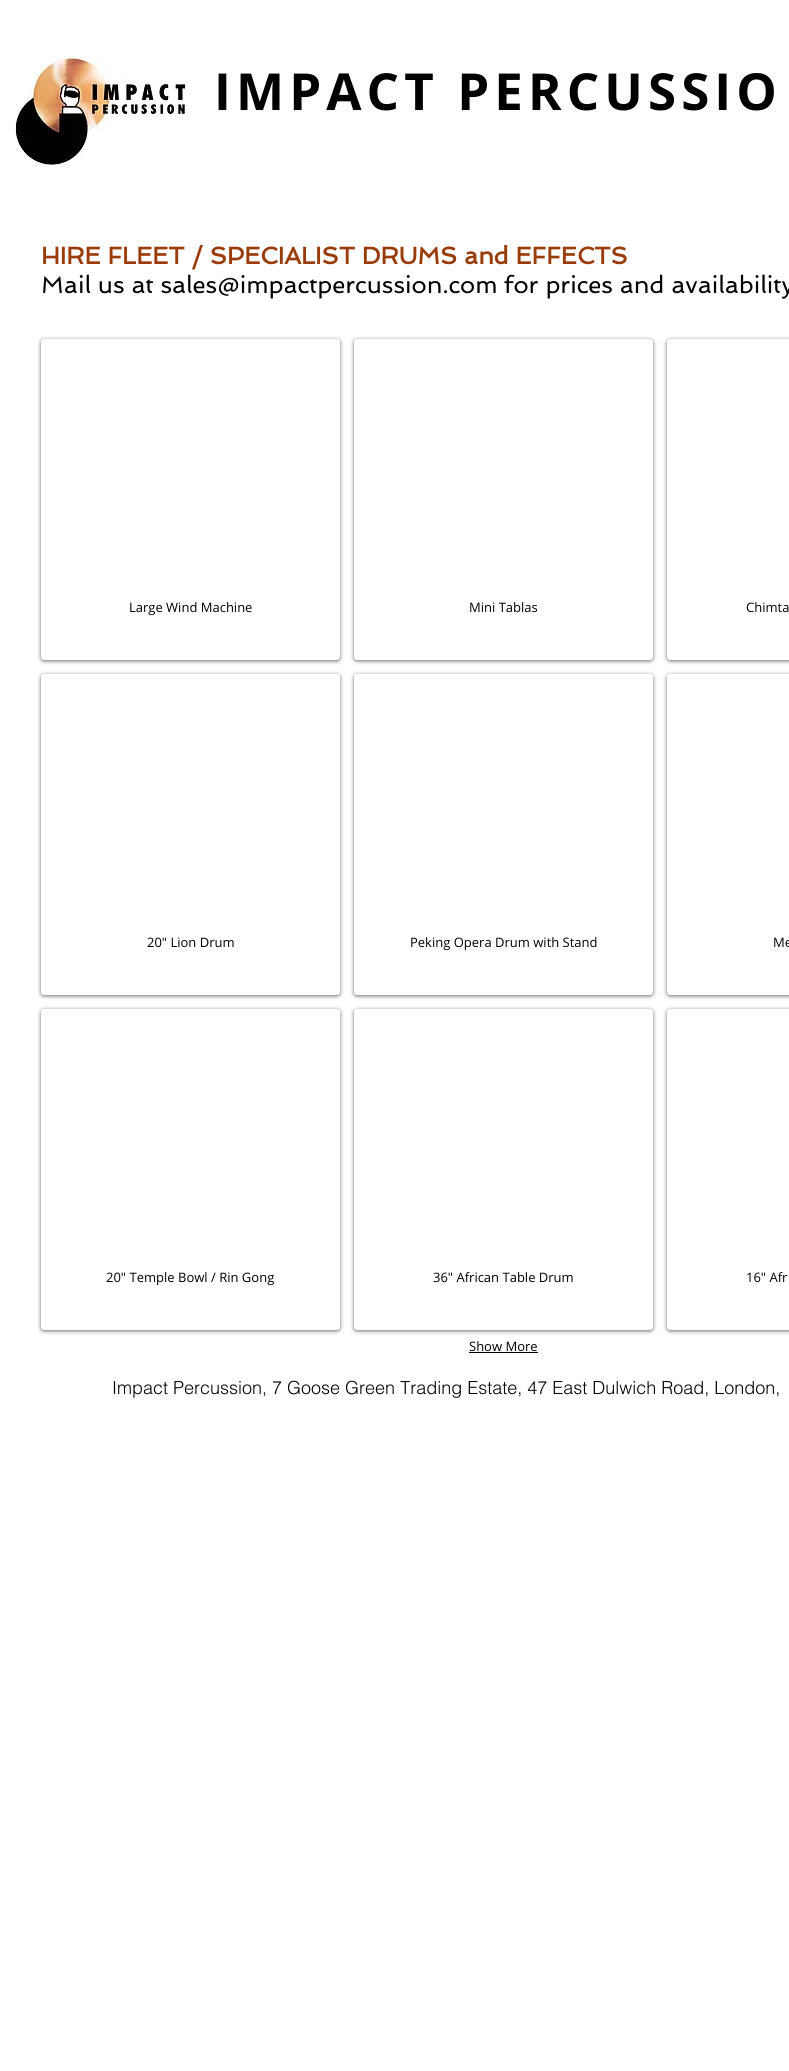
#include <cairo.h>
#include <math.h>
#include <stddef.h>

static cairo_t *ctx;

static void use_color(int r, int g, int b) {
    cairo_set_source_rgb(ctx, r / 255.0, g / 255.0, b / 255.0);
}

static void spaced_text(double x, double y, const char *s, double letter, double word) {
    cairo_move_to(ctx, x, y);
    while (*s) {
        char ch[5] = {0};
        int n = 0;
        do ch[n++] = *s++; while ((*s & 0xC0) == 0x80);
        cairo_show_text(ctx, ch);
        cairo_rel_move_to(ctx, letter + word * (*ch == ' '), 0);
    }
}

static void round_rect(double x, double y, double w, double h, double r) {
    cairo_new_sub_path(ctx);
    cairo_arc(ctx, x + w - r, y + h - r, r, 0, M_PI / 2);
    cairo_arc(ctx, x + r, y + h - r, r, M_PI / 2, M_PI);
    cairo_arc(ctx, x + r, y + r, r, M_PI, 1.5 * M_PI);
    cairo_arc(ctx, x + w - r, y + r, r, 1.5 * M_PI, 2 * M_PI);
    cairo_close_path(ctx);
}

static void shadow(double x, double y, double w, double h, double r, double blur, double alpha) {
    cairo_push_group_with_content(ctx, CAIRO_CONTENT_ALPHA);
    cairo_set_operator(ctx, CAIRO_OPERATOR_SOURCE);
    for (int i = 15; i >= -15 && fmin(w, h) + blur * i / 3 > 0; i -= 2) {
        double e = blur * i / 6;
        cairo_set_source_rgba(ctx, 0, 0, 0, alpha * erfc((i - 1) / 8.5) / 2);
        round_rect(x - e, y - e, w + 2 * e, h + 2 * e, fmax(0, fmin(r + e + blur * .6, fmin(w, h) / 2 + e)));
        cairo_fill(ctx);
    }
    cairo_pattern_t *soft = cairo_pop_group(ctx);
    cairo_mask(ctx, soft);
    cairo_pattern_destroy(soft);
}

static void picture(const char *path, double x, double y, double w, double h) {
    cairo_surface_t *image = cairo_image_surface_create_from_png(path);
    cairo_save(ctx);
    cairo_set_source_surface(ctx, image, x, y);
    cairo_rectangle(ctx, x, y, w, h);
    cairo_fill(ctx);
    cairo_restore(ctx);
    cairo_surface_destroy(image);
}

int main(void) {
    cairo_surface_t *surface = cairo_image_surface_create(CAIRO_FORMAT_RGB24, 789, 2071);
    ctx = cairo_create(surface);
    cairo_font_options_t *options = cairo_font_options_create();
    cairo_font_options_set_hint_metrics(options, CAIRO_HINT_METRICS_OFF);
    cairo_font_options_set_hint_style(options, CAIRO_HINT_STYLE_NONE);
    cairo_set_font_options(ctx, options);
    cairo_set_miter_limit(ctx, 4);
    use_color(255, 255, 255);
    cairo_paint(ctx);
    picture("img1.png", 15, 54, 173, 112);
    cairo_select_font_face(ctx, "Open Sans", CAIRO_FONT_SLANT_NORMAL, CAIRO_FONT_WEIGHT_BOLD);
    cairo_set_font_size(ctx, 51);
    use_color(0, 0, 0);
    spaced_text(214, 110, "IMPACT PERCUSSIO", 5.1, 0);
    cairo_select_font_face(ctx, "Spinnaker", CAIRO_FONT_SLANT_NORMAL, CAIRO_FONT_WEIGHT_BOLD);
    cairo_set_font_size(ctx, 24);
    use_color(154, 60, 9);
    cairo_move_to(ctx, 41, 264);
    cairo_show_text(ctx, "HIRE FLEET / SPECIALIST DRUMS and EFFECTS");
    cairo_select_font_face(ctx, "Spinnaker", CAIRO_FONT_SLANT_NORMAL, CAIRO_FONT_WEIGHT_NORMAL);
    use_color(0, 0, 0);
    cairo_move_to(ctx, 41, 293);
    cairo_show_text(ctx, "Mail us at sales@impactpercussion.com for prices and availability");
    use_color(0, 0, 0);
    shadow(41, 340, 299, 321, 3, 2, 0.6);
    use_color(255, 255, 255);
    round_rect(41, 339, 299, 321, 3);
    cairo_fill(ctx);
    cairo_select_font_face(ctx, "Open Sans", CAIRO_FONT_SLANT_NORMAL, CAIRO_FONT_WEIGHT_NORMAL);
    cairo_set_font_size(ctx, 13);
    use_color(0, 0, 0);
    cairo_move_to(ctx, 129, 612);
    cairo_show_text(ctx, "Large Wind Machine");
    use_color(0, 0, 0);
    shadow(354, 340, 299, 321, 3, 2, 0.6);
    use_color(255, 255, 255);
    round_rect(354, 339, 299, 321, 3);
    cairo_fill(ctx);
    use_color(0, 0, 0);
    cairo_move_to(ctx, 469, 612);
    cairo_show_text(ctx, "Mini Tablas");
    use_color(0, 0, 0);
    shadow(667, 340, 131, 321, 3, 2, 0.6);
    use_color(255, 255, 255);
    round_rect(667, 339, 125, 321, 3);
    cairo_fill(ctx);
    use_color(0, 0, 0);
    cairo_move_to(ctx, 746, 612);
    cairo_show_text(ctx, "Chimta");
    use_color(0, 0, 0);
    shadow(41, 675, 299, 321, 3, 2, 0.6);
    use_color(255, 255, 255);
    round_rect(41, 674, 299, 321, 3);
    cairo_fill(ctx);
    use_color(0, 0, 0);
    cairo_move_to(ctx, 147, 947);
    cairo_show_text(ctx, "20\" Lion Drum");
    use_color(0, 0, 0);
    shadow(354, 675, 299, 321, 3, 2, 0.6);
    use_color(255, 255, 255);
    round_rect(354, 674, 299, 321, 3);
    cairo_fill(ctx);
    use_color(0, 0, 0);
    cairo_move_to(ctx, 410, 947);
    cairo_show_text(ctx, "Peking Opera Drum with Stand");
    use_color(0, 0, 0);
    shadow(667, 675, 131, 321, 3, 2, 0.6);
    use_color(255, 255, 255);
    round_rect(667, 674, 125, 321, 3);
    cairo_fill(ctx);
    use_color(0, 0, 0);
    cairo_move_to(ctx, 773, 947);
    cairo_show_text(ctx, "Me");
    use_color(0, 0, 0);
    shadow(41, 1010, 299, 321, 3, 2, 0.6);
    use_color(255, 255, 255);
    round_rect(41, 1009, 299, 321, 3);
    cairo_fill(ctx);
    use_color(0, 0, 0);
    cairo_move_to(ctx, 106, 1282);
    cairo_show_text(ctx, "20\" Temple Bowl / Rin Gong");
    use_color(0, 0, 0);
    shadow(354, 1010, 299, 321, 3, 2, 0.6);
    use_color(255, 255, 255);
    round_rect(354, 1009, 299, 321, 3);
    cairo_fill(ctx);
    use_color(0, 0, 0);
    cairo_move_to(ctx, 433, 1282);
    cairo_show_text(ctx, "36\" African Table Drum");
    use_color(0, 0, 0);
    shadow(667, 1010, 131, 321, 3, 2, 0.6);
    use_color(255, 255, 255);
    round_rect(667, 1009, 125, 321, 3);
    cairo_fill(ctx);
    use_color(0, 0, 0);
    cairo_move_to(ctx, 746, 1282);
    cairo_show_text(ctx, "16\" Afr");
    cairo_move_to(ctx, 469, 1351);
    cairo_show_text(ctx, "Show More");
    cairo_rectangle(ctx, 469, 1352, 69, 1);
    cairo_fill(ctx);
    cairo_select_font_face(ctx, "helvetica Light", CAIRO_FONT_SLANT_NORMAL, CAIRO_FONT_WEIGHT_NORMAL);
    cairo_set_font_size(ctx, 18);
    cairo_move_to(ctx, 112, 1394);
    cairo_show_text(ctx, "Impact Percussion, 7 Goose Green Trading Estate, 47 East Dulwich Road, London,");
    cairo_surface_write_to_png(surface, "result.png");
    cairo_font_options_destroy(options);
    cairo_destroy(ctx);
    cairo_surface_destroy(surface);
    return 0;
}
